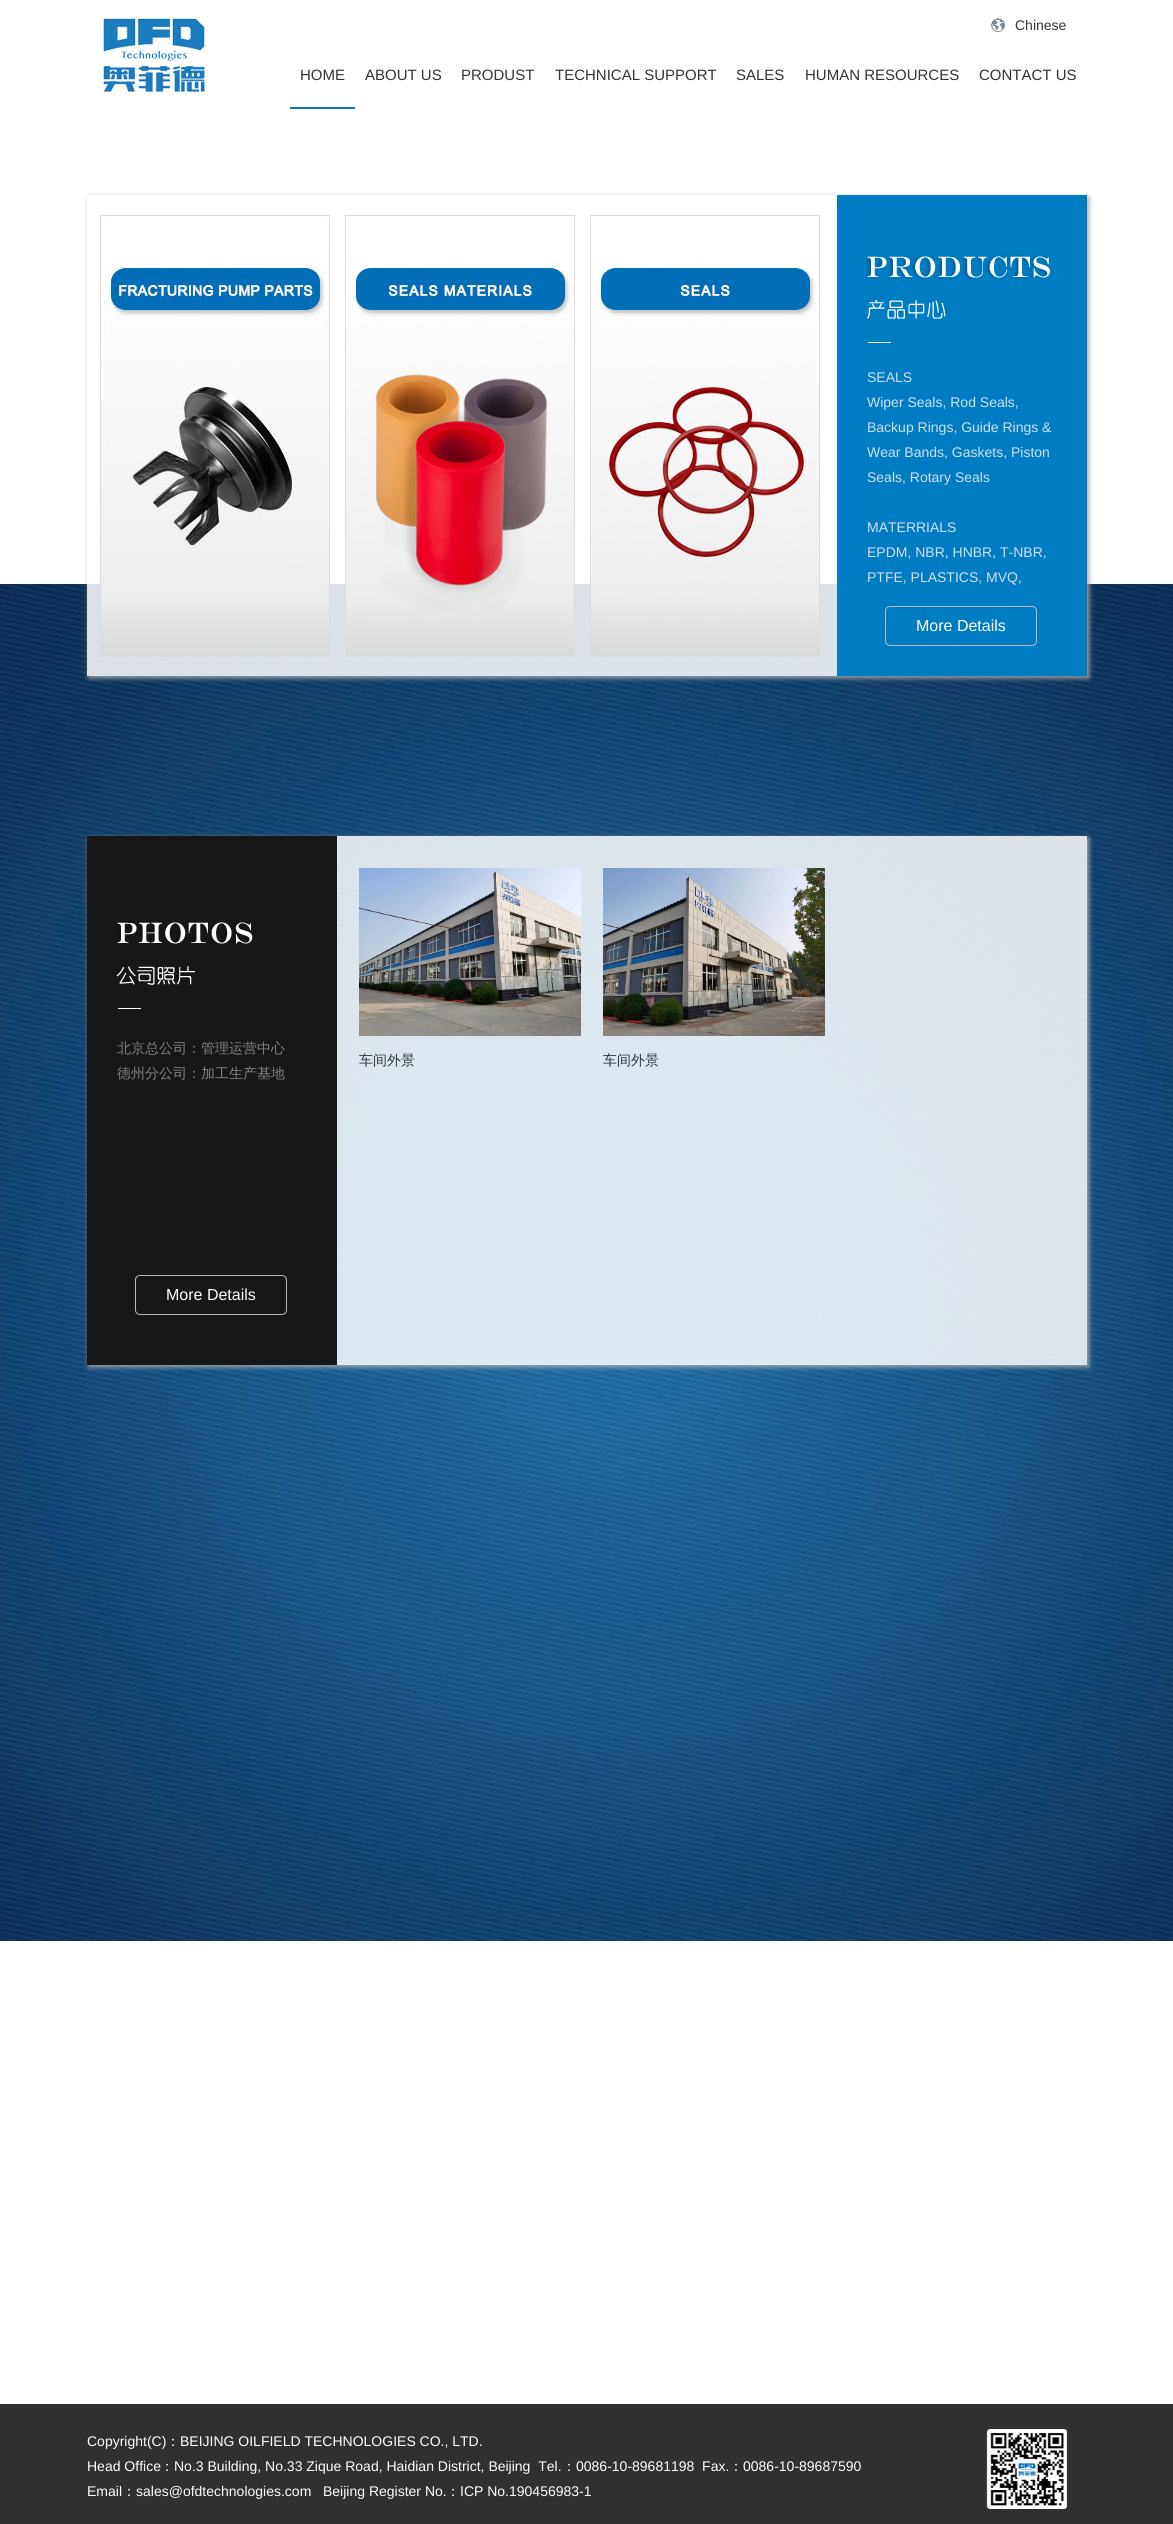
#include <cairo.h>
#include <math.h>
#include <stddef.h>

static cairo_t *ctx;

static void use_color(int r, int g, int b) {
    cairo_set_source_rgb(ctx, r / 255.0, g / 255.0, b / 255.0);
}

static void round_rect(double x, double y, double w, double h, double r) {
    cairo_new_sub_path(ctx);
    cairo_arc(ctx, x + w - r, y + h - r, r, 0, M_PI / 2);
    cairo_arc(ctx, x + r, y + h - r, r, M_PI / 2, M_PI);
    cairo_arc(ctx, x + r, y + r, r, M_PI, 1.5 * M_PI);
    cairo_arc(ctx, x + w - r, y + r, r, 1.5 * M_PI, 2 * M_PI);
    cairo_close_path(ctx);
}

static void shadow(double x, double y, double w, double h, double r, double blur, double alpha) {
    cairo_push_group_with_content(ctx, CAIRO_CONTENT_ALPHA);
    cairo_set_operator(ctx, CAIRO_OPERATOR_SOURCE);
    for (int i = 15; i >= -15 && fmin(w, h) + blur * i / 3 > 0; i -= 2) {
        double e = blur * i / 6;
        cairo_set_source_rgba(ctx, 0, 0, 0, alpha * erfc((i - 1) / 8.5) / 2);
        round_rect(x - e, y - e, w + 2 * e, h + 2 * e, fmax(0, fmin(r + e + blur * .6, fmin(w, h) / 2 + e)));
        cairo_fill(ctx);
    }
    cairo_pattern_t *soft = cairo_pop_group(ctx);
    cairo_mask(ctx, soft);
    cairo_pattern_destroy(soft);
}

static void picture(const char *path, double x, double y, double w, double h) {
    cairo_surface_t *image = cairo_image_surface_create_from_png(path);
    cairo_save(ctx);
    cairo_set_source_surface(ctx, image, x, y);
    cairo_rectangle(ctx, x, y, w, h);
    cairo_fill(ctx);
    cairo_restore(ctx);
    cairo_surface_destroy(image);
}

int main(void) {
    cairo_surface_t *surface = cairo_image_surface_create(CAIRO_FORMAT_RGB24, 1173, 2524);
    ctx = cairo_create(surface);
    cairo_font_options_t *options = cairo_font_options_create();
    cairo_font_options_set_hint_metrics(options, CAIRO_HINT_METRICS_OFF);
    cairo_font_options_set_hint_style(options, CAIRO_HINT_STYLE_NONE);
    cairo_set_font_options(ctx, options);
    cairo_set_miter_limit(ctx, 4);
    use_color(255, 255, 255);
    cairo_paint(ctx);
    picture("img1.png", 0, 584, 1173, 1357);
    picture("img2.png", 103, 18, 102, 75);
    picture("img3.png", 991, 18, 14, 14);
    cairo_select_font_face(ctx, "Liberation Sans", CAIRO_FONT_SLANT_NORMAL, CAIRO_FONT_WEIGHT_NORMAL);
    cairo_set_font_size(ctx, 14);
    use_color(51, 51, 51);
    cairo_move_to(ctx, 1015, 30);
    cairo_show_text(ctx, "Chinese");
    use_color(0, 124, 195);
    cairo_rectangle(ctx, 290, 107, 65, 2);
    cairo_fill(ctx);
    cairo_set_font_size(ctx, 15);
    use_color(51, 51, 51);
    cairo_move_to(ctx, 300, 80);
    cairo_show_text(ctx, "HOME");
    cairo_move_to(ctx, 365, 80);
    cairo_show_text(ctx, "ABOUT US");
    cairo_move_to(ctx, 461, 80);
    cairo_show_text(ctx, "PRODUST");
    cairo_move_to(ctx, 555, 80);
    cairo_show_text(ctx, "TECHNICAL SUPPORT");
    cairo_move_to(ctx, 736, 80);
    cairo_show_text(ctx, "SALES");
    cairo_move_to(ctx, 805, 80);
    cairo_show_text(ctx, "HUMAN RESOURCES");
    cairo_move_to(ctx, 979, 80);
    cairo_show_text(ctx, "CONTACT US");
    cairo_save(ctx);
    cairo_set_fill_rule(ctx, CAIRO_FILL_RULE_EVEN_ODD);
    cairo_new_path(ctx);
    cairo_move_to(ctx, 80, 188);
    cairo_line_to(ctx, 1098, 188);
    cairo_line_to(ctx, 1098, 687);
    cairo_line_to(ctx, 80, 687);
    cairo_close_path(ctx);
    cairo_move_to(ctx, 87, 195);
    cairo_line_to(ctx, 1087, 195);
    cairo_line_to(ctx, 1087, 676);
    cairo_line_to(ctx, 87, 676);
    cairo_close_path(ctx);
    cairo_clip(ctx);
    use_color(170, 170, 170);
    shadow(89, 197, 1000, 481, 0, 2.5, 1);
    cairo_restore(ctx);
    cairo_set_source_rgba(ctx, 1, 1, 1, 0.85);
    cairo_rectangle(ctx, 87, 584, 750, 92);
    cairo_fill(ctx);
    picture("img4.png", 100, 215, 230, 442);
    picture("img5.png", 345, 215, 230, 442);
    picture("img6.png", 590, 215, 230, 442);
    use_color(0, 124, 195);
    cairo_rectangle(ctx, 837, 195, 250, 481);
    cairo_fill(ctx);
    picture("img7.png", 865, 254, 185, 89);
    cairo_set_font_size(ctx, 14);
    use_color(207, 224, 239);
    cairo_move_to(ctx, 867, 382);
    cairo_show_text(ctx, "SEALS");
    cairo_move_to(ctx, 867, 407);
    cairo_show_text(ctx, "Wiper Seals, Rod Seals,");
    cairo_move_to(ctx, 867, 432);
    cairo_show_text(ctx, "Backup Rings, Guide Rings &");
    cairo_move_to(ctx, 867, 457);
    cairo_show_text(ctx, "Wear Bands, Gaskets, Piston");
    cairo_move_to(ctx, 867, 482);
    cairo_show_text(ctx, "Seals, Rotary Seals");
    cairo_move_to(ctx, 867, 532);
    cairo_show_text(ctx, "MATERRIALS");
    cairo_move_to(ctx, 867, 557);
    cairo_show_text(ctx, "EPDM, NBR, HNBR, T-NBR,");
    cairo_move_to(ctx, 867, 582);
    cairo_show_text(ctx, "PTFE, PLASTICS, MVQ,");
    round_rect(885.5, 606.5, 151, 39, 4.5);
    use_color(186, 186, 186);
    cairo_set_line_width(ctx, 1);
    cairo_stroke(ctx);
    cairo_set_font_size(ctx, 16);
    use_color(255, 255, 255);
    cairo_move_to(ctx, 916, 631);
    cairo_show_text(ctx, "More Details");
    cairo_save(ctx);
    cairo_set_fill_rule(ctx, CAIRO_FILL_RULE_EVEN_ODD);
    cairo_new_path(ctx);
    cairo_move_to(ctx, 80, 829);
    cairo_line_to(ctx, 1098, 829);
    cairo_line_to(ctx, 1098, 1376);
    cairo_line_to(ctx, 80, 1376);
    cairo_close_path(ctx);
    cairo_move_to(ctx, 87, 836);
    cairo_line_to(ctx, 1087, 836);
    cairo_line_to(ctx, 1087, 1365);
    cairo_line_to(ctx, 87, 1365);
    cairo_close_path(ctx);
    cairo_clip(ctx);
    use_color(170, 170, 170);
    shadow(89, 838, 1000, 529, 0, 2.5, 1);
    cairo_restore(ctx);
    cairo_set_source_rgba(ctx, 1, 1, 1, 0.85);
    cairo_rectangle(ctx, 337, 836, 750, 529);
    cairo_fill(ctx);
    use_color(23, 23, 23);
    cairo_rectangle(ctx, 87, 836, 250, 529);
    cairo_fill(ctx);
    picture("img8.png", 116, 922, 137, 87);
    cairo_select_font_face(ctx, "WenQuanYi Zen Hei Medium", CAIRO_FONT_SLANT_NORMAL, CAIRO_FONT_WEIGHT_NORMAL);
    cairo_set_font_size(ctx, 14);
    use_color(130, 130, 130);
    cairo_move_to(ctx, 117, 1053);
    cairo_show_text(ctx, "北京总公司：管理运营中心");
    cairo_move_to(ctx, 117, 1078);
    cairo_show_text(ctx, "德州分公司：加工生产基地");
    round_rect(135.5, 1275.5, 151, 39, 4.5);
    use_color(186, 186, 186);
    cairo_stroke(ctx);
    cairo_select_font_face(ctx, "Liberation Sans", CAIRO_FONT_SLANT_NORMAL, CAIRO_FONT_WEIGHT_NORMAL);
    cairo_set_font_size(ctx, 16);
    use_color(255, 255, 255);
    cairo_move_to(ctx, 166, 1300);
    cairo_show_text(ctx, "More Details");
    picture("img9.png", 359, 868, 222, 168);
    cairo_select_font_face(ctx, "WenQuanYi Zen Hei Medium", CAIRO_FONT_SLANT_NORMAL, CAIRO_FONT_WEIGHT_NORMAL);
    cairo_set_font_size(ctx, 14);
    use_color(45, 55, 60);
    cairo_move_to(ctx, 359, 1065);
    cairo_show_text(ctx, "车间外景");
    picture("img10.png", 603, 868, 222, 168);
    cairo_move_to(ctx, 603, 1065);
    cairo_show_text(ctx, "车间外景");
    use_color(48, 48, 48);
    cairo_rectangle(ctx, 0, 2404, 1173, 120);
    cairo_fill(ctx);
    cairo_select_font_face(ctx, "Liberation Sans", CAIRO_FONT_SLANT_NORMAL, CAIRO_FONT_WEIGHT_NORMAL);
    use_color(255, 255, 255);
    cairo_move_to(ctx, 87, 2446);
    cairo_show_text(ctx, "Copyright(C)");
    cairo_select_font_face(ctx, "WenQuanYi Zen Hei Medium", CAIRO_FONT_SLANT_NORMAL, CAIRO_FONT_WEIGHT_NORMAL);
    cairo_move_to(ctx, 166, 2446);
    cairo_show_text(ctx, "：");
    cairo_select_font_face(ctx, "Liberation Sans", CAIRO_FONT_SLANT_NORMAL, CAIRO_FONT_WEIGHT_NORMAL);
    cairo_move_to(ctx, 180, 2446);
    cairo_show_text(ctx, "BEIJING OILFIELD TECHNOLOGIES CO., LTD.");
    cairo_move_to(ctx, 87, 2471);
    cairo_show_text(ctx, "Head Office");
    cairo_select_font_face(ctx, "WenQuanYi Zen Hei Medium", CAIRO_FONT_SLANT_NORMAL, CAIRO_FONT_WEIGHT_NORMAL);
    cairo_move_to(ctx, 160, 2471);
    cairo_show_text(ctx, "：");
    cairo_select_font_face(ctx, "Liberation Sans", CAIRO_FONT_SLANT_NORMAL, CAIRO_FONT_WEIGHT_NORMAL);
    cairo_move_to(ctx, 174, 2471);
    cairo_show_text(ctx, "No.3 Building, No.33 Zique Road, Haidian District, Beijing  Tel.");
    cairo_select_font_face(ctx, "WenQuanYi Zen Hei Medium", CAIRO_FONT_SLANT_NORMAL, CAIRO_FONT_WEIGHT_NORMAL);
    cairo_move_to(ctx, 562, 2471);
    cairo_show_text(ctx, "：");
    cairo_select_font_face(ctx, "Liberation Sans", CAIRO_FONT_SLANT_NORMAL, CAIRO_FONT_WEIGHT_NORMAL);
    cairo_move_to(ctx, 576, 2471);
    cairo_show_text(ctx, "0086-10-89681198  Fax.");
    cairo_select_font_face(ctx, "WenQuanYi Zen Hei Medium", CAIRO_FONT_SLANT_NORMAL, CAIRO_FONT_WEIGHT_NORMAL);
    cairo_move_to(ctx, 729, 2471);
    cairo_show_text(ctx, "：");
    cairo_select_font_face(ctx, "Liberation Sans", CAIRO_FONT_SLANT_NORMAL, CAIRO_FONT_WEIGHT_NORMAL);
    cairo_move_to(ctx, 743, 2471);
    cairo_show_text(ctx, "0086-10-89687590");
    cairo_move_to(ctx, 87, 2496);
    cairo_show_text(ctx, "Email");
    cairo_select_font_face(ctx, "WenQuanYi Zen Hei Medium", CAIRO_FONT_SLANT_NORMAL, CAIRO_FONT_WEIGHT_NORMAL);
    cairo_move_to(ctx, 122, 2496);
    cairo_show_text(ctx, "：");
    cairo_select_font_face(ctx, "Liberation Sans", CAIRO_FONT_SLANT_NORMAL, CAIRO_FONT_WEIGHT_NORMAL);
    cairo_move_to(ctx, 136, 2496);
    cairo_show_text(ctx, "sales@ofdtechnologies.com   Beijing Register No.");
    cairo_select_font_face(ctx, "WenQuanYi Zen Hei Medium", CAIRO_FONT_SLANT_NORMAL, CAIRO_FONT_WEIGHT_NORMAL);
    cairo_move_to(ctx, 446, 2496);
    cairo_show_text(ctx, "：");
    cairo_select_font_face(ctx, "Liberation Sans", CAIRO_FONT_SLANT_NORMAL, CAIRO_FONT_WEIGHT_NORMAL);
    cairo_move_to(ctx, 460, 2496);
    cairo_show_text(ctx, "ICP No.190456983-1");
    picture("img11.png", 986, 2429, 81, 80);
    cairo_surface_write_to_png(surface, "result.png");
    cairo_font_options_destroy(options);
    cairo_destroy(ctx);
    cairo_surface_destroy(surface);
    return 0;
}
